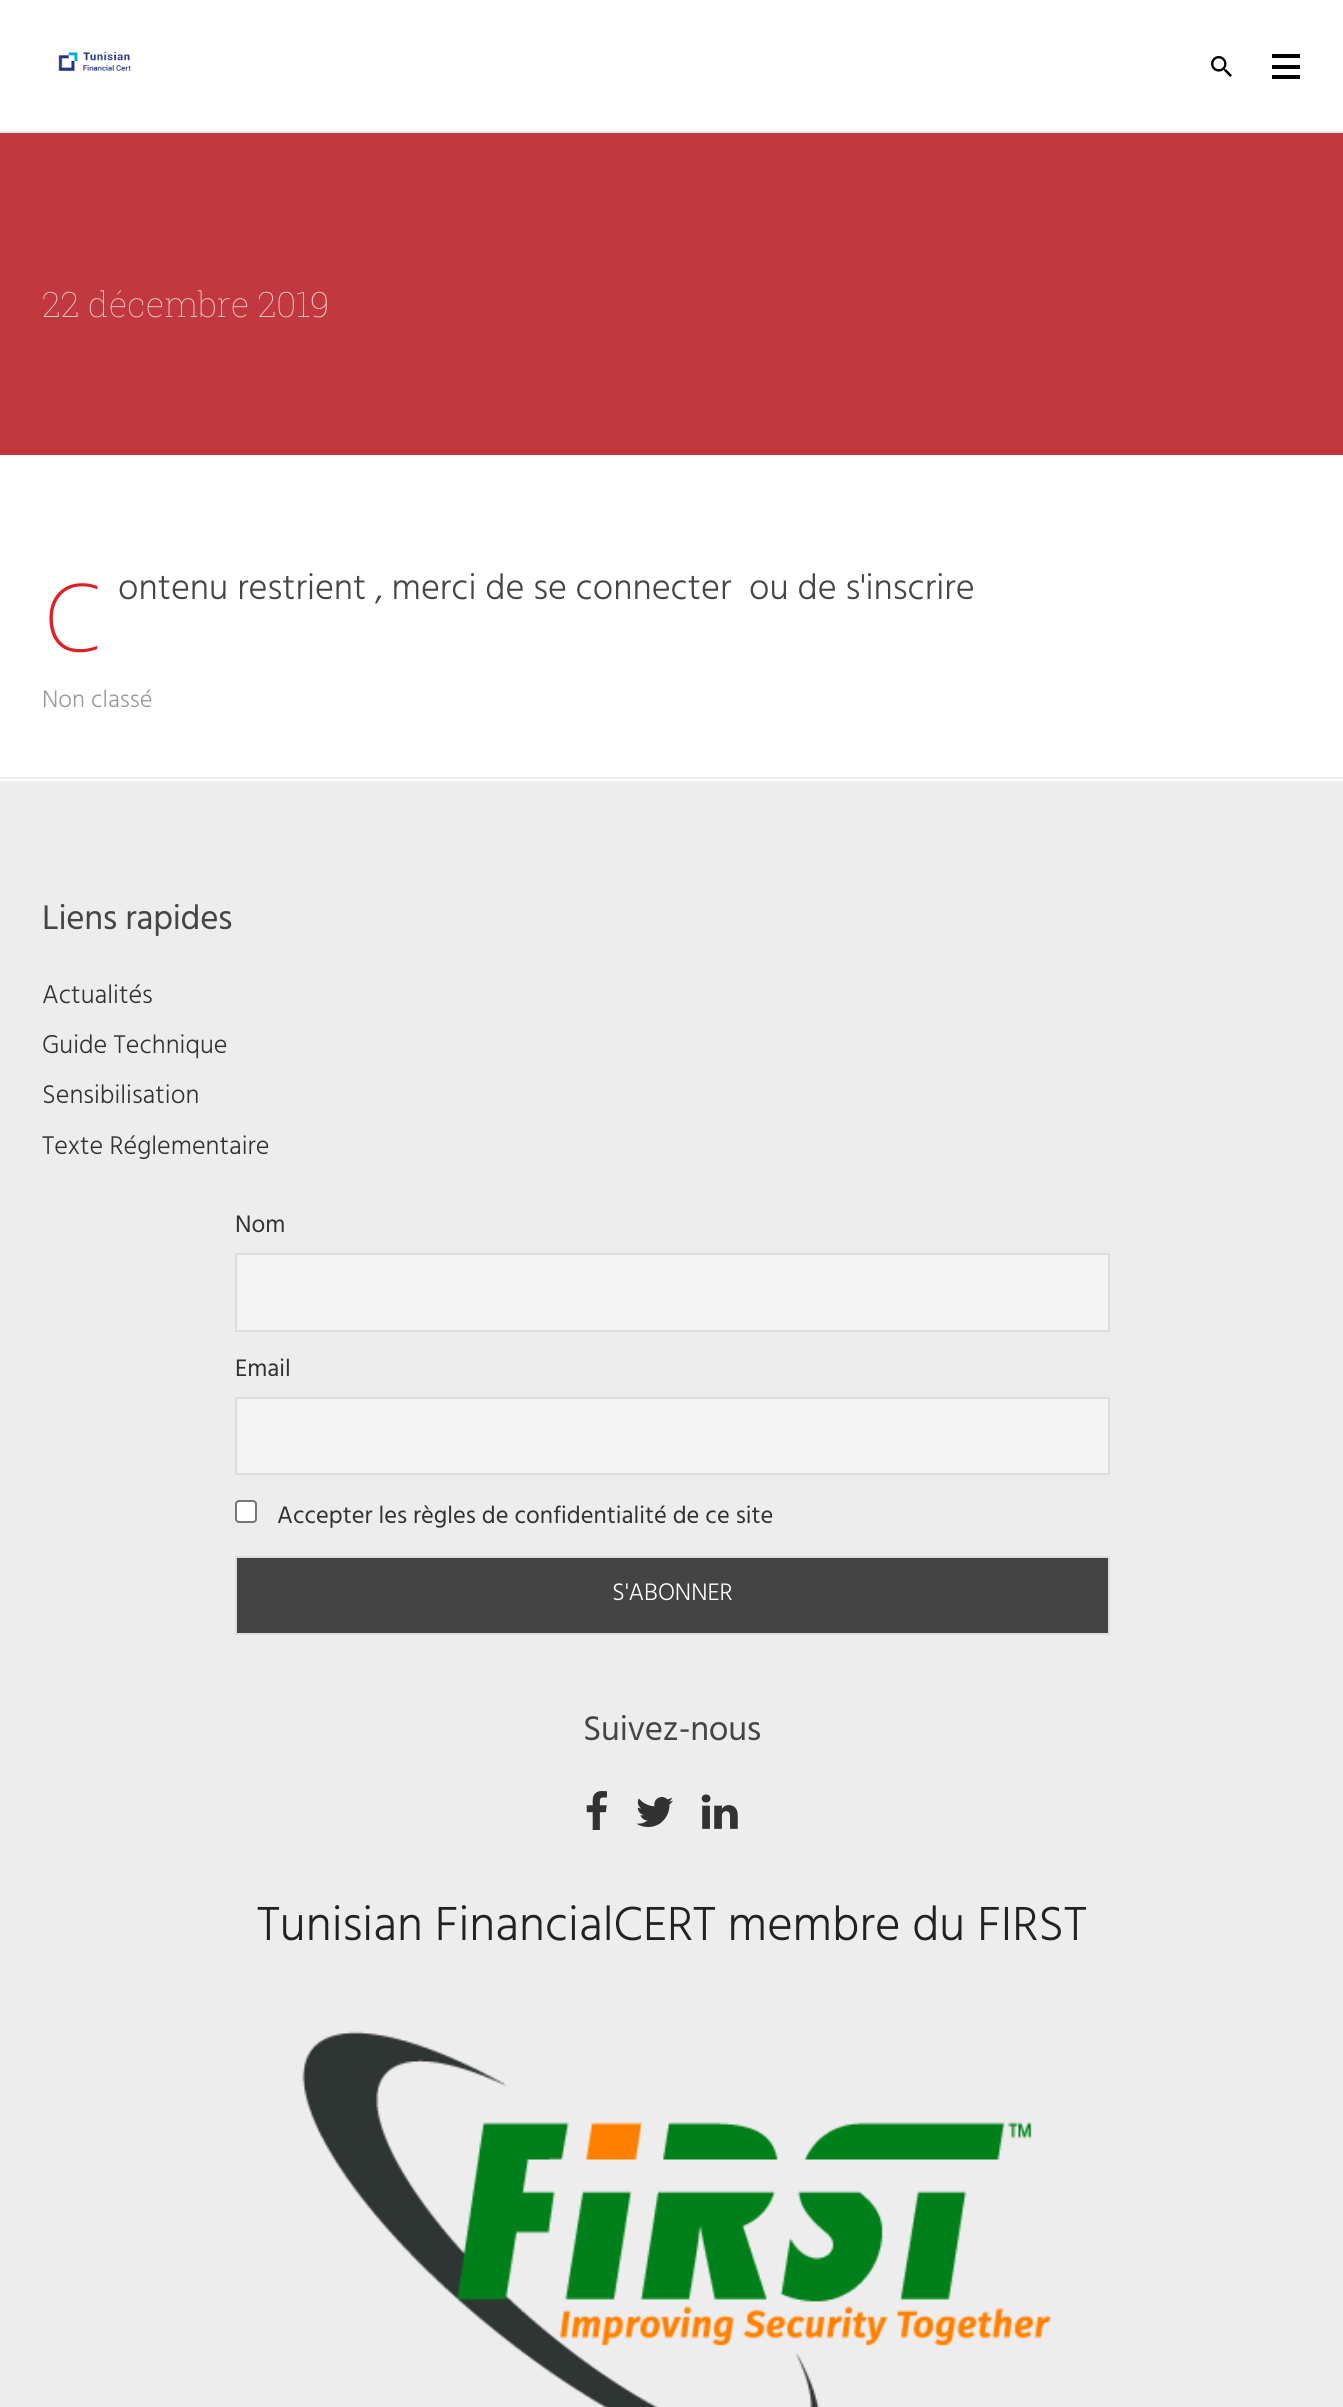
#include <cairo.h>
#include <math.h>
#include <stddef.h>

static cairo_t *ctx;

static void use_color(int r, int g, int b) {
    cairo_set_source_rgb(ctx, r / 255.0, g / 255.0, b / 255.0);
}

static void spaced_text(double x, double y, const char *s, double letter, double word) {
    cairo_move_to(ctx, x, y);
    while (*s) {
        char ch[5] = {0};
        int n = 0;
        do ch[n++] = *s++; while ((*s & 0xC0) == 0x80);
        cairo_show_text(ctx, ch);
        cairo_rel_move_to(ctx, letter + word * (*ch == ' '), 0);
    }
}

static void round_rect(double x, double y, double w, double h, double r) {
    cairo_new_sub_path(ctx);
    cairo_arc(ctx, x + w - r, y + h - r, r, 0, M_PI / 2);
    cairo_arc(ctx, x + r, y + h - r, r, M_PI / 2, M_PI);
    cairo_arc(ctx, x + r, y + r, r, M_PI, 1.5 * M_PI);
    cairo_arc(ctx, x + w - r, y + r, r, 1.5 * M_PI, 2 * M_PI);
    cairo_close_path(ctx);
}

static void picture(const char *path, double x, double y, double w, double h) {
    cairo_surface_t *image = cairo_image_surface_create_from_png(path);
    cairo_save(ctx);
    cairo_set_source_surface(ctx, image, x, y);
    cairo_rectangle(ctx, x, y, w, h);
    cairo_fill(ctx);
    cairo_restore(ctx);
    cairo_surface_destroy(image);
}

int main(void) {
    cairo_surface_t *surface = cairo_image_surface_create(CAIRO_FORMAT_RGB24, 1343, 2407);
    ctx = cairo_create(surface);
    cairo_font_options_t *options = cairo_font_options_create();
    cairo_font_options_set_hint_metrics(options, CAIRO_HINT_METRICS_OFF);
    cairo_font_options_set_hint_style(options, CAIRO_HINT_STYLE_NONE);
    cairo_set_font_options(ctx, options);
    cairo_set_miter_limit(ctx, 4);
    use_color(255, 255, 255);
    cairo_paint(ctx);
    use_color(238, 238, 238);
    cairo_rectangle(ctx, 0, 131, 1343, 2);
    cairo_fill(ctx);
    picture("img1.png", 58, 51, 73, 20);
    picture("img2.png", 1211, 56, 21, 21);
    use_color(0, 0, 0);
    cairo_rectangle(ctx, 1272, 54, 28, 4);
    cairo_fill(ctx);
    cairo_rectangle(ctx, 1272, 65, 28, 4);
    cairo_fill(ctx);
    cairo_rectangle(ctx, 1272, 75, 28, 4);
    cairo_fill(ctx);
    use_color(193, 57, 63);
    cairo_rectangle(ctx, 0, 133, 1343, 322);
    cairo_fill(ctx);
    cairo_select_font_face(ctx, "Roboto Slab Thin", CAIRO_FONT_SLANT_NORMAL, CAIRO_FONT_WEIGHT_NORMAL);
    cairo_set_font_size(ctx, 35);
    use_color(240, 206, 207);
    cairo_move_to(ctx, 42, 317);
    cairo_show_text(ctx, "22 décembre 2019");
    cairo_select_font_face(ctx, "Noto Sans Thin", CAIRO_FONT_SLANT_NORMAL, CAIRO_FONT_WEIGHT_NORMAL);
    cairo_set_font_size(ctx, 126);
    use_color(224, 30, 38);
    cairo_move_to(ctx, 42, 651);
    cairo_show_text(ctx, "c");
    cairo_select_font_face(ctx, "Hind Light", CAIRO_FONT_SLANT_NORMAL, CAIRO_FONT_WEIGHT_NORMAL);
    cairo_set_font_size(ctx, 36.4);
    use_color(69, 69, 69);
    cairo_move_to(ctx, 118, 599);
    cairo_show_text(ctx, "ontenu restrient , merci de se connecter  ou de s'inscrire");
    cairo_set_font_size(ctx, 24.5);
    use_color(153, 153, 153);
    cairo_move_to(ctx, 42, 707);
    cairo_show_text(ctx, "Non classé");
    use_color(238, 238, 238);
    cairo_rectangle(ctx, 0, 777, 1343, 2);
    cairo_fill(ctx);
    use_color(237, 237, 237);
    cairo_rectangle(ctx, 0, 781, 1343, 1626);
    cairo_fill(ctx);
    cairo_select_font_face(ctx, "Hind", CAIRO_FONT_SLANT_NORMAL, CAIRO_FONT_WEIGHT_NORMAL);
    cairo_set_font_size(ctx, 35);
    use_color(69, 69, 69);
    spaced_text(42, 929, "Liens rapides", -0.3, 0);
    cairo_select_font_face(ctx, "Hind Light", CAIRO_FONT_SLANT_NORMAL, CAIRO_FONT_WEIGHT_NORMAL);
    cairo_set_font_size(ctx, 26.25);
    use_color(50, 50, 50);
    cairo_move_to(ctx, 42, 1003);
    cairo_show_text(ctx, "Actualités");
    cairo_move_to(ctx, 42, 1053);
    cairo_show_text(ctx, "Guide Technique");
    cairo_move_to(ctx, 42, 1103);
    cairo_show_text(ctx, "Sensibilisation");
    cairo_move_to(ctx, 42, 1154);
    cairo_show_text(ctx, "Texte Réglementaire");
    cairo_select_font_face(ctx, "Hind", CAIRO_FONT_SLANT_NORMAL, CAIRO_FONT_WEIGHT_NORMAL);
    cairo_set_font_size(ctx, 24.5);
    cairo_move_to(ctx, 235, 1232);
    cairo_show_text(ctx, "Nom");
    use_color(244, 244, 244);
    cairo_rectangle(ctx, 236, 1254, 873, 77);
    cairo_fill_preserve(ctx);
    use_color(221, 221, 221);
    cairo_stroke(ctx);
    use_color(50, 50, 50);
    cairo_move_to(ctx, 235, 1376);
    cairo_show_text(ctx, "Email");
    use_color(244, 244, 244);
    cairo_rectangle(ctx, 236, 1398, 873, 76);
    cairo_fill_preserve(ctx);
    use_color(221, 221, 221);
    cairo_stroke(ctx);
    use_color(255, 255, 255);
    round_rect(236, 1501, 20, 21, 3);
    cairo_fill_preserve(ctx);
    use_color(118, 118, 118);
    cairo_stroke(ctx);
    use_color(50, 50, 50);
    cairo_move_to(ctx, 277, 1523);
    cairo_show_text(ctx, "Accepter les règles de confidentialité de ce site");
    use_color(68, 68, 68);
    cairo_rectangle(ctx, 236, 1557, 873, 77);
    cairo_fill_preserve(ctx);
    use_color(221, 221, 221);
    cairo_stroke(ctx);
    cairo_select_font_face(ctx, "Hind Light", CAIRO_FONT_SLANT_NORMAL, CAIRO_FONT_WEIGHT_NORMAL);
    use_color(255, 255, 255);
    cairo_move_to(ctx, 612, 1600);
    cairo_show_text(ctx, "S'ABONNER");
    cairo_select_font_face(ctx, "Hind", CAIRO_FONT_SLANT_NORMAL, CAIRO_FONT_WEIGHT_NORMAL);
    cairo_set_font_size(ctx, 35);
    use_color(69, 69, 69);
    spaced_text(583, 1740, "Suivez-nous", -0.3, 0);
    picture("img3.png", 586, 1791, 21, 39);
    picture("img4.png", 636, 1797, 37, 30);
    picture("img5.png", 701, 1794, 37, 35);
    cairo_select_font_face(ctx, "Hind Light", CAIRO_FONT_SLANT_NORMAL, CAIRO_FONT_WEIGHT_NORMAL);
    cairo_set_font_size(ctx, 49);
    use_color(34, 34, 34);
    cairo_move_to(ctx, 257, 1940);
    cairo_show_text(ctx, "Tunisian FinancialCERT membre du FIRST");
    picture("img6.png", 302, 2031, 749, 376);
    cairo_surface_write_to_png(surface, "result.png");
    cairo_font_options_destroy(options);
    cairo_destroy(ctx);
    cairo_surface_destroy(surface);
    return 0;
}
